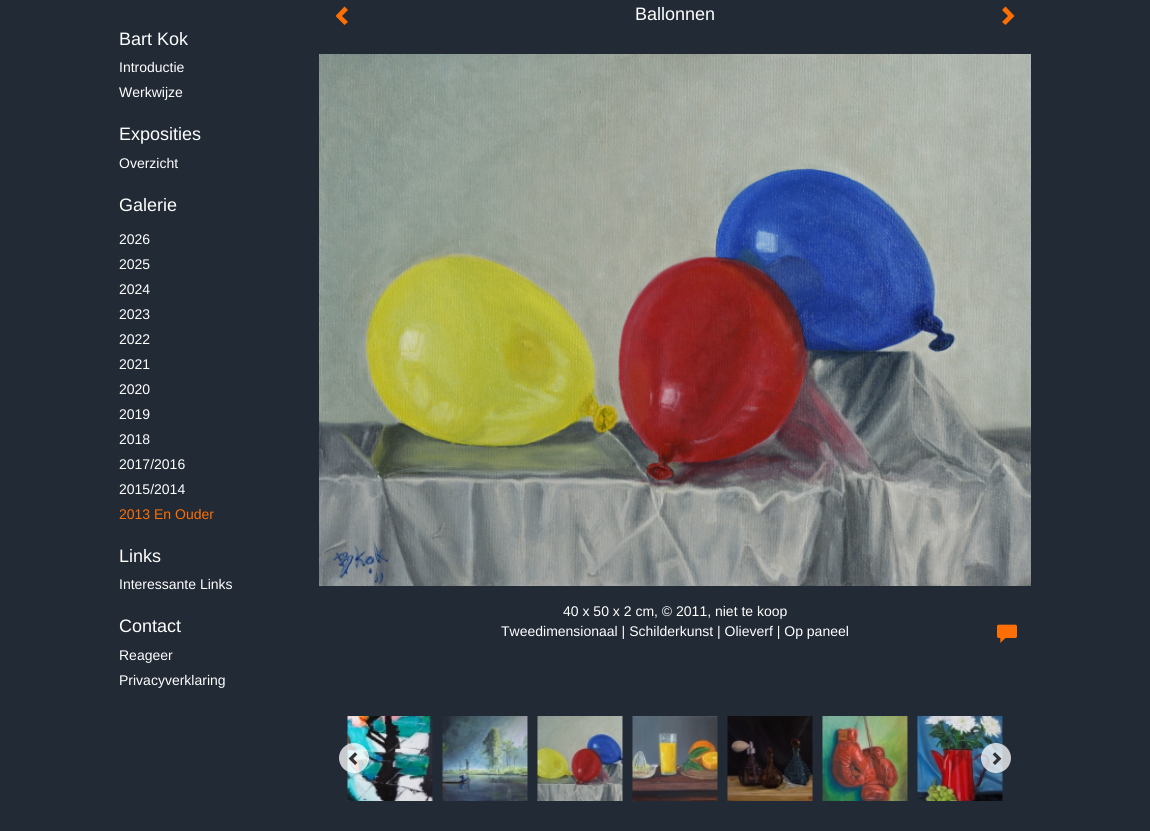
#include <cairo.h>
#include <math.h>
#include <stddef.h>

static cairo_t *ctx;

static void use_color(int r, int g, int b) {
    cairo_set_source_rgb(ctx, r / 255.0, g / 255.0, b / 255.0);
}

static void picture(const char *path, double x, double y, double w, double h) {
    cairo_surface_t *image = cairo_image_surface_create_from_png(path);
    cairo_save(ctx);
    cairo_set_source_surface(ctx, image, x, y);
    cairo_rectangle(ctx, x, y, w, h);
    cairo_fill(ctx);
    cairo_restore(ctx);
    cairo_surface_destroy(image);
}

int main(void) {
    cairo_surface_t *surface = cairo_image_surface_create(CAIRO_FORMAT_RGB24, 1150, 831);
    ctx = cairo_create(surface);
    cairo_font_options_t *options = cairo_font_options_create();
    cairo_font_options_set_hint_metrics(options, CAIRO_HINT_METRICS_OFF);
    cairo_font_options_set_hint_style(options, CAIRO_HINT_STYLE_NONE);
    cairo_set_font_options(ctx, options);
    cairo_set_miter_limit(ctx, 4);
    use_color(34, 42, 54);
    cairo_paint(ctx);
    cairo_select_font_face(ctx, "Liberation Sans", CAIRO_FONT_SLANT_NORMAL, CAIRO_FONT_WEIGHT_NORMAL);
    cairo_set_font_size(ctx, 18);
    use_color(255, 255, 255);
    cairo_move_to(ctx, 119, 45);
    cairo_show_text(ctx, "Bart Kok");
    cairo_set_font_size(ctx, 14);
    cairo_move_to(ctx, 119, 72);
    cairo_show_text(ctx, "Introductie");
    cairo_move_to(ctx, 119, 97);
    cairo_show_text(ctx, "Werkwijze");
    cairo_set_font_size(ctx, 18);
    cairo_move_to(ctx, 119, 140);
    cairo_show_text(ctx, "Exposities");
    cairo_set_font_size(ctx, 14);
    cairo_move_to(ctx, 119, 168);
    cairo_show_text(ctx, "Overzicht");
    cairo_set_font_size(ctx, 18);
    cairo_move_to(ctx, 119, 211);
    cairo_show_text(ctx, "Galerie");
    cairo_set_font_size(ctx, 14);
    cairo_move_to(ctx, 119, 244);
    cairo_show_text(ctx, "2026");
    cairo_move_to(ctx, 119, 269);
    cairo_show_text(ctx, "2025");
    cairo_move_to(ctx, 119, 294);
    cairo_show_text(ctx, "2024");
    cairo_move_to(ctx, 119, 319);
    cairo_show_text(ctx, "2023");
    cairo_move_to(ctx, 119, 344);
    cairo_show_text(ctx, "2022");
    cairo_move_to(ctx, 119, 369);
    cairo_show_text(ctx, "2021");
    cairo_move_to(ctx, 119, 394);
    cairo_show_text(ctx, "2020");
    cairo_move_to(ctx, 119, 419);
    cairo_show_text(ctx, "2019");
    cairo_move_to(ctx, 119, 444);
    cairo_show_text(ctx, "2018");
    cairo_move_to(ctx, 119, 469);
    cairo_show_text(ctx, "2017/2016");
    cairo_move_to(ctx, 119, 494);
    cairo_show_text(ctx, "2015/2014");
    use_color(253, 110, 3);
    cairo_move_to(ctx, 119, 519);
    cairo_show_text(ctx, "2013 En Ouder");
    cairo_set_font_size(ctx, 18);
    use_color(255, 255, 255);
    cairo_move_to(ctx, 119, 562);
    cairo_show_text(ctx, "Links");
    cairo_set_font_size(ctx, 14);
    cairo_move_to(ctx, 119, 589);
    cairo_show_text(ctx, "Interessante Links");
    cairo_set_font_size(ctx, 18);
    cairo_move_to(ctx, 119, 632);
    cairo_show_text(ctx, "Contact");
    cairo_set_font_size(ctx, 14);
    cairo_move_to(ctx, 119, 660);
    cairo_show_text(ctx, "Reageer");
    cairo_move_to(ctx, 119, 685);
    cairo_show_text(ctx, "Privacyverklaring");
    use_color(253, 110, 3);
    cairo_new_path(ctx);
    cairo_move_to(ctx, 348, 10);
    cairo_line_to(ctx, 342, 16);
    cairo_line_to(ctx, 348, 22);
    cairo_line_to(ctx, 344.5, 25);
    cairo_line_to(ctx, 335.5, 16);
    cairo_line_to(ctx, 344.5, 6.5);
    cairo_close_path(ctx);
    cairo_fill(ctx);
    cairo_set_font_size(ctx, 18);
    use_color(255, 255, 255);
    cairo_move_to(ctx, 635, 20);
    cairo_show_text(ctx, "Ballonnen");
    use_color(253, 110, 3);
    cairo_new_path(ctx);
    cairo_move_to(ctx, 1014.5, 16);
    cairo_line_to(ctx, 1005.5, 25);
    cairo_line_to(ctx, 1002, 22);
    cairo_line_to(ctx, 1008, 16);
    cairo_line_to(ctx, 1002, 10);
    cairo_line_to(ctx, 1005.5, 6.5);
    cairo_close_path(ctx);
    cairo_fill(ctx);
    picture("img1.png", 319, 54, 712, 532);
    cairo_set_font_size(ctx, 14);
    use_color(255, 255, 255);
    cairo_move_to(ctx, 563, 616);
    cairo_show_text(ctx, "40 x 50 x 2 cm, © 2011, niet te koop");
    cairo_move_to(ctx, 501, 636);
    cairo_show_text(ctx, "Tweedimensionaal | Schilderkunst | Olieverf | Op paneel");
    picture("img2.png", 997, 624, 20, 19);
    picture("img3.png", 347, 716, 86, 85);
    picture("img4.png", 442, 716, 86, 85);
    picture("img5.png", 537, 716, 86, 85);
    picture("img6.png", 632, 716, 86, 85);
    picture("img7.png", 727, 716, 86, 85);
    picture("img8.png", 822, 716, 86, 85);
    picture("img9.png", 917, 716, 86, 85);
    cairo_set_source_rgba(ctx, 1, 1, 1, 0.75);
    cairo_arc(ctx, 354, 758, 15, 0, 2 * M_PI);
    cairo_fill(ctx);
    picture("img10.png", 348, 752, 10, 13);
    cairo_arc(ctx, 996, 758, 15, 0, 2 * M_PI);
    cairo_fill(ctx);
    picture("img11.png", 992, 752, 10, 13);
    cairo_surface_write_to_png(surface, "result.png");
    cairo_font_options_destroy(options);
    cairo_destroy(ctx);
    cairo_surface_destroy(surface);
    return 0;
}
